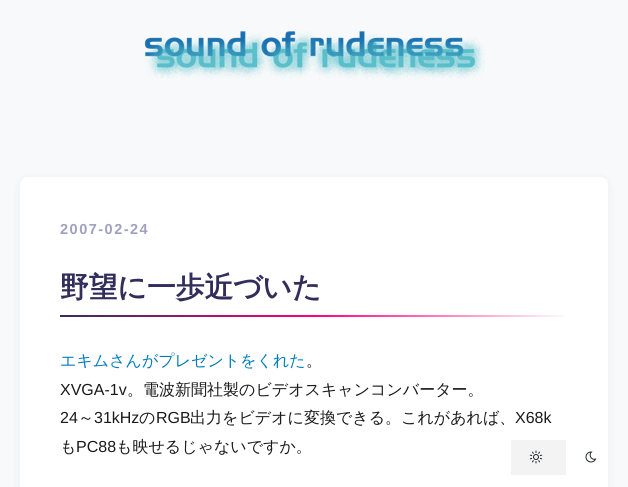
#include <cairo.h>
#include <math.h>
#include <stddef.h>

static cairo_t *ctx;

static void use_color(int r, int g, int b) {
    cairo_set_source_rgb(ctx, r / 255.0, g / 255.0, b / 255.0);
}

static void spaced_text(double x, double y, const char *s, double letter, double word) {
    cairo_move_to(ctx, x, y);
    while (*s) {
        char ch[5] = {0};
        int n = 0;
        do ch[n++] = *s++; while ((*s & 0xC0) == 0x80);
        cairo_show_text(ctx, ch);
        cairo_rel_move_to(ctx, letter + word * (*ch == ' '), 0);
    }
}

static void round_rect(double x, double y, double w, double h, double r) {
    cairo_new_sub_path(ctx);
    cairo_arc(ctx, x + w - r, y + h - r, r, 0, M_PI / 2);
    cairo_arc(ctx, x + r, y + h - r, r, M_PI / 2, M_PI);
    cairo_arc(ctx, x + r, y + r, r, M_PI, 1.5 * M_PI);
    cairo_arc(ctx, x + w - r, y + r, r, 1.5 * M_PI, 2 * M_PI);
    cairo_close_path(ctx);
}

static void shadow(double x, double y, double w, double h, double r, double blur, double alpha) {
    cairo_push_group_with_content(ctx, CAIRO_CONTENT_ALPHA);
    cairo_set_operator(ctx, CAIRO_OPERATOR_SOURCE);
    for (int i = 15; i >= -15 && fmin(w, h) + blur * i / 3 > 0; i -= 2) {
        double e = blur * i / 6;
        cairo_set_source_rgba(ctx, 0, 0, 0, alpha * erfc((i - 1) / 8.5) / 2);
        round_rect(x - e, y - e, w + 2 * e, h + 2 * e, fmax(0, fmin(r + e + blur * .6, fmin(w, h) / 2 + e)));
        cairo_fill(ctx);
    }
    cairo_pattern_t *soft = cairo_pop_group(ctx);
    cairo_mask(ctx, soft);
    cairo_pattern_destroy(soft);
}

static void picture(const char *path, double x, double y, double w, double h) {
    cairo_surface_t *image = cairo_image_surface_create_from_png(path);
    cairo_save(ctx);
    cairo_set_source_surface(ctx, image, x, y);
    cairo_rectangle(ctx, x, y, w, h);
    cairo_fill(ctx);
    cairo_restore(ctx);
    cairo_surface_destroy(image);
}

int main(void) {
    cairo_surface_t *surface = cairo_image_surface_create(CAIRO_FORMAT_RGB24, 628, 487);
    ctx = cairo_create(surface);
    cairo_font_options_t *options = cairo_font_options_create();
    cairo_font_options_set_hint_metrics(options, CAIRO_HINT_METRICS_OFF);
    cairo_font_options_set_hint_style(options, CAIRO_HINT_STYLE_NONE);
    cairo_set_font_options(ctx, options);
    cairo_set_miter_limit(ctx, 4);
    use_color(248, 249, 250);
    cairo_paint(ctx);
    picture("img1.png", 143, 30, 343, 55);
    use_color(0, 0, 0);
    shadow(20, 179, 588, 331, 8, 5, 0.05);
    use_color(255, 255, 255);
    round_rect(20, 177, 588, 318, 8);
    cairo_fill(ctx);
    cairo_select_font_face(ctx, "Liberation Sans", CAIRO_FONT_SLANT_NORMAL, CAIRO_FONT_WEIGHT_BOLD);
    cairo_set_font_size(ctx, 14.5);
    use_color(160, 160, 192);
    spaced_text(60, 234, "2007-02-24", 1.5, 0);
    picture("img2.png", 60, 315, 504, 2);
    cairo_select_font_face(ctx, "WenQuanYi Zen Hei", CAIRO_FONT_SLANT_NORMAL, CAIRO_FONT_WEIGHT_BOLD);
    cairo_set_font_size(ctx, 28.75);
    use_color(51, 45, 91);
    cairo_move_to(ctx, 60, 297);
    cairo_show_text(ctx, "野望に一歩近づいた");
    cairo_select_font_face(ctx, "WenQuanYi Zen Hei Medium", CAIRO_FONT_SLANT_NORMAL, CAIRO_FONT_WEIGHT_NORMAL);
    cairo_set_font_size(ctx, 16);
    use_color(0, 124, 186);
    cairo_move_to(ctx, 60, 366);
    cairo_show_text(ctx, "エキムさんがプレゼントをくれた");
    use_color(26, 26, 26);
    cairo_move_to(ctx, 306, 366);
    cairo_show_text(ctx, "。");
    cairo_select_font_face(ctx, "Liberation Sans", CAIRO_FONT_SLANT_NORMAL, CAIRO_FONT_WEIGHT_NORMAL);
    cairo_move_to(ctx, 60, 395);
    cairo_show_text(ctx, "XVGA-1v");
    cairo_select_font_face(ctx, "WenQuanYi Zen Hei Medium", CAIRO_FONT_SLANT_NORMAL, CAIRO_FONT_WEIGHT_NORMAL);
    cairo_move_to(ctx, 127, 395);
    cairo_show_text(ctx, "。電波新聞社製のビデオスキャンコンバーター。");
    cairo_select_font_face(ctx, "Liberation Sans", CAIRO_FONT_SLANT_NORMAL, CAIRO_FONT_WEIGHT_NORMAL);
    cairo_move_to(ctx, 60, 423);
    cairo_show_text(ctx, "24");
    cairo_select_font_face(ctx, "WenQuanYi Zen Hei Medium", CAIRO_FONT_SLANT_NORMAL, CAIRO_FONT_WEIGHT_NORMAL);
    cairo_move_to(ctx, 78, 423);
    cairo_show_text(ctx, "～");
    cairo_select_font_face(ctx, "Liberation Sans", CAIRO_FONT_SLANT_NORMAL, CAIRO_FONT_WEIGHT_NORMAL);
    cairo_move_to(ctx, 94, 423);
    cairo_show_text(ctx, "31kHz");
    cairo_select_font_face(ctx, "WenQuanYi Zen Hei Medium", CAIRO_FONT_SLANT_NORMAL, CAIRO_FONT_WEIGHT_NORMAL);
    cairo_move_to(ctx, 139, 423);
    cairo_show_text(ctx, "の");
    cairo_select_font_face(ctx, "Liberation Sans", CAIRO_FONT_SLANT_NORMAL, CAIRO_FONT_WEIGHT_NORMAL);
    cairo_move_to(ctx, 156, 423);
    cairo_show_text(ctx, "RGB");
    cairo_select_font_face(ctx, "WenQuanYi Zen Hei Medium", CAIRO_FONT_SLANT_NORMAL, CAIRO_FONT_WEIGHT_NORMAL);
    cairo_move_to(ctx, 190, 423);
    cairo_show_text(ctx, "出力をビデオに変換できる。これがあれば、");
    cairo_select_font_face(ctx, "Liberation Sans", CAIRO_FONT_SLANT_NORMAL, CAIRO_FONT_WEIGHT_NORMAL);
    cairo_move_to(ctx, 515, 423);
    cairo_show_text(ctx, "X68k");
    cairo_select_font_face(ctx, "WenQuanYi Zen Hei Medium", CAIRO_FONT_SLANT_NORMAL, CAIRO_FONT_WEIGHT_NORMAL);
    cairo_move_to(ctx, 60, 452);
    cairo_show_text(ctx, "も");
    cairo_select_font_face(ctx, "Liberation Sans", CAIRO_FONT_SLANT_NORMAL, CAIRO_FONT_WEIGHT_NORMAL);
    cairo_move_to(ctx, 76, 452);
    cairo_show_text(ctx, "PC88");
    cairo_select_font_face(ctx, "WenQuanYi Zen Hei Medium", CAIRO_FONT_SLANT_NORMAL, CAIRO_FONT_WEIGHT_NORMAL);
    cairo_move_to(ctx, 116, 452);
    cairo_show_text(ctx, "も映せるじゃないですか。");
    picture("img3.png", 529, 450, 14, 14);
    cairo_set_source_rgba(ctx, 0, 0, 0, 0.05);
    cairo_rectangle(ctx, 511, 440, 55, 35);
    cairo_fill(ctx);
    picture("img4.png", 585, 451, 12, 12);
    cairo_surface_write_to_png(surface, "result.png");
    cairo_font_options_destroy(options);
    cairo_destroy(ctx);
    cairo_surface_destroy(surface);
    return 0;
}
